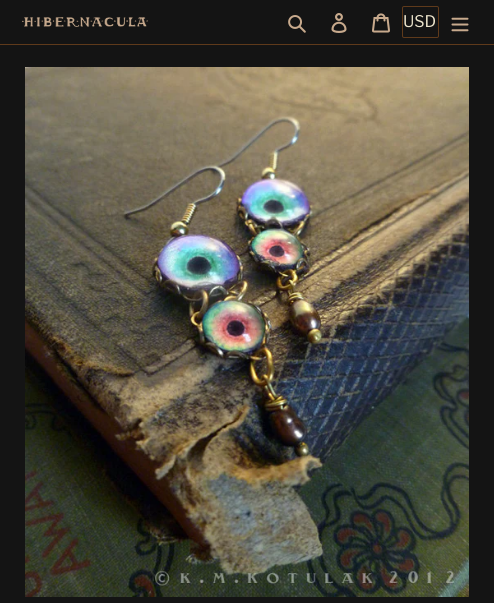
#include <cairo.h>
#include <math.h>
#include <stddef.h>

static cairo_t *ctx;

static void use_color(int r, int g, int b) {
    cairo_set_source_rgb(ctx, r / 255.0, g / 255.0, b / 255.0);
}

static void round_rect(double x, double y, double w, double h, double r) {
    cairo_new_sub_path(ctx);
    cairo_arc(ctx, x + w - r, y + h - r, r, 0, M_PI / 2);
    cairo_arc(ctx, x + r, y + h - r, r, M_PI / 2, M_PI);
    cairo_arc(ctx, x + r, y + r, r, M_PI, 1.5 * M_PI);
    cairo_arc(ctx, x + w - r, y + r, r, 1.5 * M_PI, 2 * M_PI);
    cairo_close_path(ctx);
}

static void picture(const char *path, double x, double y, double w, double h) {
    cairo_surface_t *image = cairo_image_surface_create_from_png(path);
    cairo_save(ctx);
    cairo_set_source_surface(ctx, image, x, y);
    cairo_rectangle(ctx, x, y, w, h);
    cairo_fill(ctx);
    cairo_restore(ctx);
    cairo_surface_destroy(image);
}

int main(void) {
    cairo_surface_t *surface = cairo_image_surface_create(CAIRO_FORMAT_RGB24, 494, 603);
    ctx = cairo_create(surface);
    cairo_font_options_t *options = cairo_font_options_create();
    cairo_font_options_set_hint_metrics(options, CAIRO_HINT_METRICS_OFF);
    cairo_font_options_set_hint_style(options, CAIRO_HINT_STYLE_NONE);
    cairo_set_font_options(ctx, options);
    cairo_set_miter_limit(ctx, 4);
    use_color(20, 20, 20);
    cairo_paint(ctx);
    use_color(95, 58, 27);
    cairo_rectangle(ctx, 0, 44, 494, 1);
    cairo_fill(ctx);
    picture("img1.png", 22, 17, 126, 10);
    picture("img2.png", 288, 15, 18, 18);
    picture("img3.png", 331, 13, 16, 20);
    picture("img4.png", 372, 13, 18, 20);
    round_rect(402.5, 6.5, 36, 31, 1.5);
    cairo_set_line_width(ctx, 1);
    cairo_stroke(ctx);
    cairo_select_font_face(ctx, "Libre Franklin", CAIRO_FONT_SLANT_NORMAL, CAIRO_FONT_WEIGHT_NORMAL);
    cairo_set_font_size(ctx, 16);
    use_color(235, 227, 203);
    cairo_move_to(ctx, 403, 27);
    cairo_show_text(ctx, "USD");
    picture("img5.png", 451, 17, 18, 15);
    picture("img6.png", 25, 67, 444, 530);
    cairo_surface_write_to_png(surface, "result.png");
    cairo_font_options_destroy(options);
    cairo_destroy(ctx);
    cairo_surface_destroy(surface);
    return 0;
}
